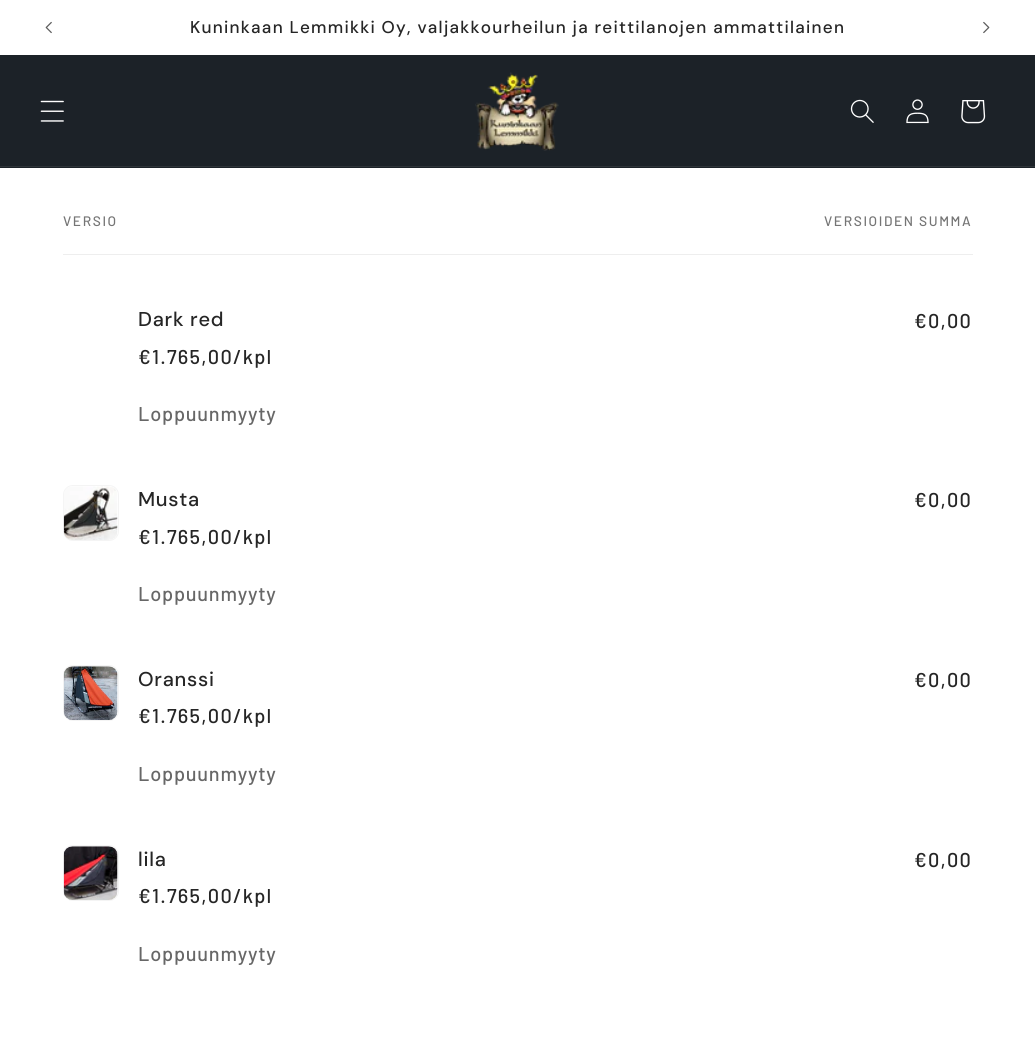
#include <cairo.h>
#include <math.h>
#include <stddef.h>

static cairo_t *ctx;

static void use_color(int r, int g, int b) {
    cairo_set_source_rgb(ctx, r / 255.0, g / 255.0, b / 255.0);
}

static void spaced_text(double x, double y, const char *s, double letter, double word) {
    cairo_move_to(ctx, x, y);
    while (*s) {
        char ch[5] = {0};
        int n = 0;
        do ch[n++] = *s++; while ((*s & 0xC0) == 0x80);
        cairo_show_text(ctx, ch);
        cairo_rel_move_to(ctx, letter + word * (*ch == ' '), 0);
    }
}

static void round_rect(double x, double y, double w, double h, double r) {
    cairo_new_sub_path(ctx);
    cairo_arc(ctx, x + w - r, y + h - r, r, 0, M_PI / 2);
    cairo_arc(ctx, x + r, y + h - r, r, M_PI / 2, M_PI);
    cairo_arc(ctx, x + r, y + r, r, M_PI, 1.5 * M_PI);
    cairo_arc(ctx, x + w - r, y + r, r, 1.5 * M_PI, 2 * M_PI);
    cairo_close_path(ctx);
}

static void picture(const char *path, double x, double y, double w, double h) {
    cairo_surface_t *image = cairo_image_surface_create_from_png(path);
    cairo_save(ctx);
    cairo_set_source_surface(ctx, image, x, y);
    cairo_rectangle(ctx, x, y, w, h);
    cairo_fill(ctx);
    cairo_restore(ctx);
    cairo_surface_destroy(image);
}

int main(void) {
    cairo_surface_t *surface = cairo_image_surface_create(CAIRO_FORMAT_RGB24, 1035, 1037);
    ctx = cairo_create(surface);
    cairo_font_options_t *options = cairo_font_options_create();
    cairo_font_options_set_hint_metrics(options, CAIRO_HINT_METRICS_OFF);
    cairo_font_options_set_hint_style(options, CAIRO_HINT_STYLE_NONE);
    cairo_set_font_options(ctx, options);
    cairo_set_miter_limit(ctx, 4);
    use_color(255, 255, 255);
    cairo_paint(ctx);
    picture("img1.png", 45, 21, 7, 13);
    cairo_select_font_face(ctx, "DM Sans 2 Medium", CAIRO_FONT_SLANT_NORMAL, CAIRO_FONT_WEIGHT_NORMAL);
    cairo_set_font_size(ctx, 17.05);
    use_color(38, 38, 38);
    spaced_text(190, 33, "Kuninkaan Lemmikki Oy, valjakkourheilun ja reittilanojen ammattilainen", 1.25, 0);
    picture("img2.png", 983, 21, 7, 13);
    use_color(28, 34, 40);
    cairo_rectangle(ctx, 0, 55, 1035, 113);
    cairo_fill(ctx);
    use_color(46, 52, 57);
    cairo_rectangle(ctx, 0, 166, 1035, 1);
    cairo_fill(ctx);
    picture("img3.png", 40, 100, 24, 22);
    picture("img4.png", 475, 72, 84, 79);
    picture("img5.png", 850, 99, 24, 24);
    picture("img6.png", 906, 99, 23, 25);
    picture("img7.png", 961, 100, 25, 24);
    use_color(238, 238, 238);
    cairo_rectangle(ctx, 63, 254, 910, 1);
    cairo_fill(ctx);
    cairo_select_font_face(ctx, "Barlow Medium", CAIRO_FONT_SLANT_NORMAL, CAIRO_FONT_WEIGHT_NORMAL);
    cairo_set_font_size(ctx, 13.75);
    use_color(117, 117, 117);
    spaced_text(63, 226, "VERSIO", 1.6, 0);
    spaced_text(824, 226, "VERSIOIDEN SUMMA", 1.6, 0);
    cairo_select_font_face(ctx, "DM Sans Medium", CAIRO_FONT_SLANT_NORMAL, CAIRO_FONT_WEIGHT_NORMAL);
    cairo_set_font_size(ctx, 20);
    use_color(38, 38, 38);
    spaced_text(138, 326, "Dark red", 0.75, 0);
    cairo_select_font_face(ctx, "Barlow Medium", CAIRO_FONT_SLANT_NORMAL, CAIRO_FONT_WEIGHT_NORMAL);
    spaced_text(138, 364, "€1.765,00/kpl", 1.25, 0);
    spaced_text(914, 328, "€0,00", 1.25, 0);
    use_color(103, 103, 103);
    spaced_text(138, 421, "Loppuunmyyty", 0.75, 0);
    round_rect(63.5, 485.5, 55, 55, 9.5);
    use_color(244, 244, 244);
    cairo_set_line_width(ctx, 1);
    cairo_stroke(ctx);
    picture("img8.png", 63, 486, 55, 54);
    cairo_select_font_face(ctx, "DM Sans Medium", CAIRO_FONT_SLANT_NORMAL, CAIRO_FONT_WEIGHT_NORMAL);
    use_color(38, 38, 38);
    spaced_text(138, 506, "Musta", 0.75, 0);
    cairo_select_font_face(ctx, "Barlow Medium", CAIRO_FONT_SLANT_NORMAL, CAIRO_FONT_WEIGHT_NORMAL);
    spaced_text(138, 544, "€1.765,00/kpl", 1.25, 0);
    spaced_text(914, 507, "€0,00", 1.25, 0);
    use_color(103, 103, 103);
    spaced_text(138, 601, "Loppuunmyyty", 0.75, 0);
    round_rect(63.5, 665.5, 55, 55, 9.5);
    use_color(244, 244, 244);
    cairo_stroke(ctx);
    picture("img9.png", 63, 666, 55, 54);
    cairo_select_font_face(ctx, "DM Sans Medium", CAIRO_FONT_SLANT_NORMAL, CAIRO_FONT_WEIGHT_NORMAL);
    use_color(38, 38, 38);
    spaced_text(138, 686, "Oranssi", 0.75, 0);
    cairo_select_font_face(ctx, "Barlow Medium", CAIRO_FONT_SLANT_NORMAL, CAIRO_FONT_WEIGHT_NORMAL);
    spaced_text(138, 723, "€1.765,00/kpl", 1.25, 0);
    spaced_text(914, 687, "€0,00", 1.25, 0);
    use_color(103, 103, 103);
    spaced_text(138, 781, "Loppuunmyyty", 0.75, 0);
    round_rect(63.5, 845.5, 55, 55, 9.5);
    use_color(244, 244, 244);
    cairo_stroke(ctx);
    picture("img10.png", 63, 846, 55, 54);
    cairo_select_font_face(ctx, "DM Sans Medium", CAIRO_FONT_SLANT_NORMAL, CAIRO_FONT_WEIGHT_NORMAL);
    use_color(38, 38, 38);
    spaced_text(138, 866, "lila", 0.75, 0);
    cairo_select_font_face(ctx, "Barlow Medium", CAIRO_FONT_SLANT_NORMAL, CAIRO_FONT_WEIGHT_NORMAL);
    spaced_text(138, 903, "€1.765,00/kpl", 1.25, 0);
    spaced_text(914, 867, "€0,00", 1.25, 0);
    use_color(103, 103, 103);
    spaced_text(138, 961, "Loppuunmyyty", 0.75, 0);
    cairo_surface_write_to_png(surface, "result.png");
    cairo_font_options_destroy(options);
    cairo_destroy(ctx);
    cairo_surface_destroy(surface);
    return 0;
}
